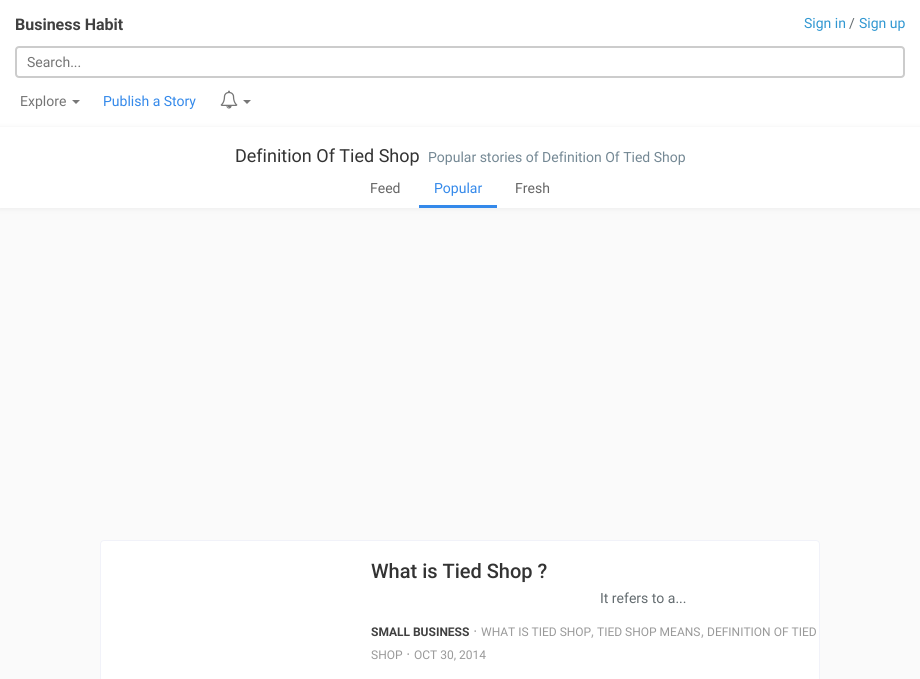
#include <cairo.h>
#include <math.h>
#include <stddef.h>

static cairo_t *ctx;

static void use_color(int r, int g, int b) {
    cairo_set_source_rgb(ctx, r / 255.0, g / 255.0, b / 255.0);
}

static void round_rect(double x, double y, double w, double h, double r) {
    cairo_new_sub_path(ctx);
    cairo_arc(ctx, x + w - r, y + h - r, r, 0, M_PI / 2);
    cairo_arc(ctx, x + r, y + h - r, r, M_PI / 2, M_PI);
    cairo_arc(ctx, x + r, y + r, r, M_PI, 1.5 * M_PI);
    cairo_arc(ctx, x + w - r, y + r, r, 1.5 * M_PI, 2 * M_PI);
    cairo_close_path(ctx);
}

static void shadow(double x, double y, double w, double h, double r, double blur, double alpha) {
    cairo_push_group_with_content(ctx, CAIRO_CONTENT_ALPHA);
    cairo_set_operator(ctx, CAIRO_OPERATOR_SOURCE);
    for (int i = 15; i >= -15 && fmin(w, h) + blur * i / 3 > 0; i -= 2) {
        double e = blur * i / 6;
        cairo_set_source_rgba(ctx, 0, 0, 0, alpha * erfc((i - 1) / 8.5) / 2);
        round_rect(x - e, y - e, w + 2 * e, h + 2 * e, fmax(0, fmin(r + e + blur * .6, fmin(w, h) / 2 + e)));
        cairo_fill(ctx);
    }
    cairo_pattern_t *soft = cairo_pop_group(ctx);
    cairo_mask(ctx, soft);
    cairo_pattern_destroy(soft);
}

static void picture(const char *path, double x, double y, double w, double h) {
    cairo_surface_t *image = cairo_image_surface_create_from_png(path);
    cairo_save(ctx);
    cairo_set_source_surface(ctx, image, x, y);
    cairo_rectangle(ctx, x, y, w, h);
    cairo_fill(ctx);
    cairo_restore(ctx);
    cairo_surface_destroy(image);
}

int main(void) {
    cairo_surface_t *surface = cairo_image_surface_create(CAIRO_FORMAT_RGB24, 920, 679);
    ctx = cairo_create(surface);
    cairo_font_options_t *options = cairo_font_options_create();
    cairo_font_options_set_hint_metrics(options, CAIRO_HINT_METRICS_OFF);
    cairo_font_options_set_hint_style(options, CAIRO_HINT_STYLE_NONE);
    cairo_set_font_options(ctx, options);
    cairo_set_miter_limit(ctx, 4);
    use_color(250, 250, 250);
    cairo_paint(ctx);
    use_color(255, 255, 255);
    cairo_rectangle(ctx, 0, 0, 920, 127);
    cairo_fill(ctx);
    cairo_select_font_face(ctx, "Roboto", CAIRO_FONT_SLANT_NORMAL, CAIRO_FONT_WEIGHT_BOLD);
    cairo_set_font_size(ctx, 16);
    use_color(64, 64, 64);
    cairo_move_to(ctx, 15, 30);
    cairo_show_text(ctx, "Business Habit");
    cairo_select_font_face(ctx, "Roboto", CAIRO_FONT_SLANT_NORMAL, CAIRO_FONT_WEIGHT_NORMAL);
    cairo_set_font_size(ctx, 14);
    use_color(48, 151, 209);
    cairo_move_to(ctx, 804, 28);
    cairo_show_text(ctx, "Sign in");
    use_color(99, 107, 111);
    cairo_move_to(ctx, 849, 28);
    cairo_show_text(ctx, "/");
    use_color(48, 151, 209);
    cairo_move_to(ctx, 859, 28);
    cairo_show_text(ctx, "Sign up");
    round_rect(16, 47, 888, 30, 3);
    use_color(204, 204, 204);
    cairo_stroke(ctx);
    use_color(117, 117, 117);
    cairo_move_to(ctx, 27, 67);
    cairo_show_text(ctx, "Search...");
    cairo_move_to(ctx, 20, 106);
    cairo_show_text(ctx, "Explore");
    use_color(119, 119, 119);
    cairo_new_path(ctx);
    cairo_move_to(ctx, 72, 100);
    cairo_line_to(ctx, 80, 100);
    cairo_line_to(ctx, 76, 104);
    cairo_close_path(ctx);
    cairo_fill(ctx);
    use_color(52, 137, 234);
    cairo_move_to(ctx, 103, 106);
    cairo_show_text(ctx, "Publish a Story");
    picture("img1.png", 220, 90, 18, 19);
    use_color(119, 119, 119);
    cairo_new_path(ctx);
    cairo_move_to(ctx, 243, 100);
    cairo_line_to(ctx, 251, 100);
    cairo_line_to(ctx, 247, 104);
    cairo_close_path(ctx);
    cairo_fill(ctx);
    use_color(240, 240, 240);
    shadow(-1, 127, 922, 83, 0, 2, 1);
    use_color(255, 255, 255);
    cairo_rectangle(ctx, 0, 127, 920, 81);
    cairo_fill(ctx);
    cairo_set_font_size(ctx, 18);
    use_color(51, 51, 51);
    cairo_move_to(ctx, 235, 162);
    cairo_show_text(ctx, "Definition Of Tied Shop");
    cairo_set_font_size(ctx, 14);
    use_color(116, 136, 148);
    cairo_move_to(ctx, 428, 162);
    cairo_show_text(ctx, "Popular stories of Definition Of Tied Shop");
    use_color(101, 101, 101);
    cairo_move_to(ctx, 370, 193);
    cairo_show_text(ctx, "Feed");
    use_color(52, 137, 234);
    cairo_rectangle(ctx, 419, 205, 78, 3);
    cairo_fill(ctx);
    cairo_move_to(ctx, 434, 193);
    cairo_show_text(ctx, "Popular");
    use_color(101, 101, 101);
    cairo_move_to(ctx, 515, 193);
    cairo_show_text(ctx, "Fresh");
    use_color(255, 255, 255);
    round_rect(100.5, 540.5, 719, 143, 3.5);
    cairo_fill_preserve(ctx);
    use_color(241, 242, 249);
    cairo_set_line_width(ctx, 1);
    cairo_stroke(ctx);
    cairo_select_font_face(ctx, "Roboto Medium", CAIRO_FONT_SLANT_NORMAL, CAIRO_FONT_WEIGHT_NORMAL);
    cairo_set_font_size(ctx, 20);
    use_color(51, 51, 51);
    cairo_move_to(ctx, 371, 578);
    cairo_show_text(ctx, "What is Tied Shop ?");
    cairo_select_font_face(ctx, "Roboto", CAIRO_FONT_SLANT_NORMAL, CAIRO_FONT_WEIGHT_NORMAL);
    cairo_set_font_size(ctx, 14);
    use_color(99, 107, 111);
    cairo_move_to(ctx, 600, 603);
    cairo_show_text(ctx, "It refers to a...");
    cairo_select_font_face(ctx, "Roboto", CAIRO_FONT_SLANT_NORMAL, CAIRO_FONT_WEIGHT_BOLD);
    cairo_set_font_size(ctx, 12);
    use_color(64, 64, 64);
    cairo_move_to(ctx, 371, 636);
    cairo_show_text(ctx, "SMALL BUSINESS");
    cairo_select_font_face(ctx, "DejaVu Sans", CAIRO_FONT_SLANT_NORMAL, CAIRO_FONT_WEIGHT_NORMAL);
    cairo_set_font_size(ctx, 14);
    use_color(170, 170, 170);
    cairo_move_to(ctx, 473, 636);
    cairo_show_text(ctx, "⋅");
    cairo_select_font_face(ctx, "Roboto", CAIRO_FONT_SLANT_NORMAL, CAIRO_FONT_WEIGHT_NORMAL);
    cairo_set_font_size(ctx, 12);
    use_color(153, 153, 153);
    cairo_move_to(ctx, 481, 636);
    cairo_show_text(ctx, "WHAT IS TIED SHOP");
    cairo_move_to(ctx, 597, 636);
    cairo_show_text(ctx, "TIED SHOP MEANS");
    cairo_move_to(ctx, 707, 636);
    cairo_show_text(ctx, "DEFINITION OF TIED");
    cairo_set_font_size(ctx, 14);
    use_color(170, 170, 170);
    cairo_move_to(ctx, 591, 636);
    cairo_show_text(ctx, ",");
    cairo_move_to(ctx, 701, 636);
    cairo_show_text(ctx, ",");
    cairo_set_font_size(ctx, 12);
    use_color(153, 153, 153);
    cairo_move_to(ctx, 371, 659);
    cairo_show_text(ctx, "SHOP");
    cairo_select_font_face(ctx, "DejaVu Sans", CAIRO_FONT_SLANT_NORMAL, CAIRO_FONT_WEIGHT_NORMAL);
    cairo_set_font_size(ctx, 14);
    use_color(170, 170, 170);
    cairo_move_to(ctx, 406, 659);
    cairo_show_text(ctx, "⋅");
    cairo_select_font_face(ctx, "Roboto", CAIRO_FONT_SLANT_NORMAL, CAIRO_FONT_WEIGHT_NORMAL);
    cairo_set_font_size(ctx, 12);
    use_color(153, 153, 153);
    cairo_move_to(ctx, 414, 659);
    cairo_show_text(ctx, "OCT 30, 2014");
    cairo_surface_write_to_png(surface, "result.png");
    cairo_font_options_destroy(options);
    cairo_destroy(ctx);
    cairo_surface_destroy(surface);
    return 0;
}
